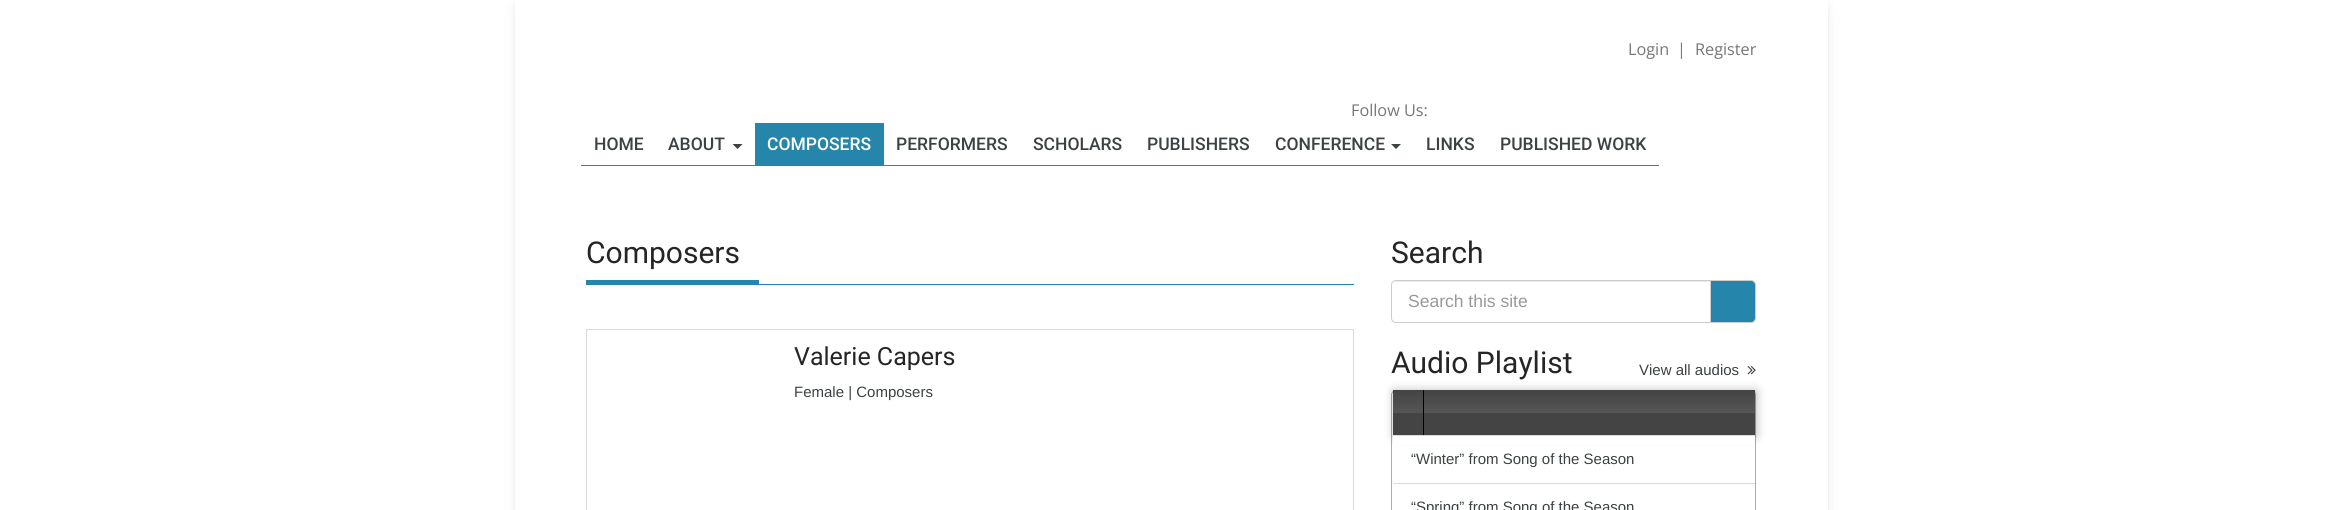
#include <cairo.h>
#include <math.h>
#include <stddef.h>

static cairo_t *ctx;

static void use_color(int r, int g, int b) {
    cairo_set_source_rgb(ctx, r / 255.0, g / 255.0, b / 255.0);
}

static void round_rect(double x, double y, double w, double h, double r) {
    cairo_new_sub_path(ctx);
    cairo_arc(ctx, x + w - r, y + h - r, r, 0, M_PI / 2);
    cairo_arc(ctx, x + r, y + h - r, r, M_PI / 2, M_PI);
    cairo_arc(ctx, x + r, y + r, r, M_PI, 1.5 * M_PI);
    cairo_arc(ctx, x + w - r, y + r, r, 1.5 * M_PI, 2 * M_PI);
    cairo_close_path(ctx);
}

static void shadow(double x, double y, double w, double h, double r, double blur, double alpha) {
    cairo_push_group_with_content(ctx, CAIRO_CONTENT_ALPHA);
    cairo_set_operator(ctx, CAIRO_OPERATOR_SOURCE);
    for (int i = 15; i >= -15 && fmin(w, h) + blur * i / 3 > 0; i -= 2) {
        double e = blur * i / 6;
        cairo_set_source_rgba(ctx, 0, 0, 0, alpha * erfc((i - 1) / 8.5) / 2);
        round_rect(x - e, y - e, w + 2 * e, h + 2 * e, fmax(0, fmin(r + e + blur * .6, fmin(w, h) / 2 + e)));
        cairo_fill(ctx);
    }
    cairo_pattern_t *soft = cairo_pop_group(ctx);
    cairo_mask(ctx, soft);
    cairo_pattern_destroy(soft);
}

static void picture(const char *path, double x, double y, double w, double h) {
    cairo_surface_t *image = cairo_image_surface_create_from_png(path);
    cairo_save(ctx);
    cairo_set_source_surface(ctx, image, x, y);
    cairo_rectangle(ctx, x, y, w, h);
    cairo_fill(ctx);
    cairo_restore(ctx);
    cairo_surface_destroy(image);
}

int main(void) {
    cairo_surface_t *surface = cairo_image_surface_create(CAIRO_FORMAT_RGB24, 2342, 510);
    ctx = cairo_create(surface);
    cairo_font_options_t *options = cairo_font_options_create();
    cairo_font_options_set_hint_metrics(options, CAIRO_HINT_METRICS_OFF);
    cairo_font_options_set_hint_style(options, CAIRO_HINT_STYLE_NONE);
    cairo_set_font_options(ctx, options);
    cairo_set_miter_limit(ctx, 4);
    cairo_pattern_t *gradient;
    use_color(255, 255, 255);
    cairo_paint(ctx);
    use_color(118, 119, 119);
    shadow(520, 5, 1303, 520, 0, 5, 0.4);
    shadow(528, 13, 1287, 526, 0, 9.5, 0.4);
    use_color(255, 255, 255);
    cairo_rectangle(ctx, 515, 0, 1313, 510);
    cairo_fill(ctx);
    cairo_select_font_face(ctx, "Open Sans", CAIRO_FONT_SLANT_NORMAL, CAIRO_FONT_WEIGHT_NORMAL);
    cairo_set_font_size(ctx, 16.25);
    use_color(118, 119, 119);
    cairo_move_to(ctx, 1628, 55);
    cairo_show_text(ctx, "Login");
    cairo_move_to(ctx, 1677, 55);
    cairo_show_text(ctx, "|");
    cairo_move_to(ctx, 1695, 55);
    cairo_show_text(ctx, "Register");
    cairo_move_to(ctx, 1351, 116);
    cairo_show_text(ctx, "Follow Us:");
    use_color(37, 133, 171);
    cairo_rectangle(ctx, 581, 165, 174, 1);
    cairo_fill(ctx);
    cairo_select_font_face(ctx, "Roboto Medium", CAIRO_FONT_SLANT_NORMAL, CAIRO_FONT_WEIGHT_NORMAL);
    cairo_set_font_size(ctx, 17.5);
    use_color(60, 65, 67);
    cairo_move_to(ctx, 594, 150);
    cairo_show_text(ctx, "HOME");
    cairo_move_to(ctx, 668, 150);
    cairo_show_text(ctx, "ABOUT");
    cairo_new_path(ctx);
    cairo_move_to(ctx, 732.5, 144);
    cairo_line_to(ctx, 742.5, 144);
    cairo_line_to(ctx, 737.5, 149);
    cairo_close_path(ctx);
    cairo_fill(ctx);
    use_color(37, 133, 171);
    cairo_rectangle(ctx, 755, 123, 129, 43);
    cairo_fill(ctx);
    use_color(255, 255, 255);
    cairo_move_to(ctx, 767, 150);
    cairo_show_text(ctx, "COMPOSERS");
    use_color(37, 133, 171);
    cairo_rectangle(ctx, 884, 165, 775, 1);
    cairo_fill(ctx);
    use_color(60, 65, 67);
    cairo_move_to(ctx, 896, 150);
    cairo_show_text(ctx, "PERFORMERS");
    cairo_move_to(ctx, 1033, 150);
    cairo_show_text(ctx, "SCHOLARS");
    cairo_move_to(ctx, 1147, 150);
    cairo_show_text(ctx, "PUBLISHERS");
    cairo_move_to(ctx, 1275, 150);
    cairo_show_text(ctx, "CONFERENCE");
    cairo_new_path(ctx);
    cairo_move_to(ctx, 1391, 144);
    cairo_line_to(ctx, 1401, 144);
    cairo_line_to(ctx, 1396, 149);
    cairo_close_path(ctx);
    cairo_fill(ctx);
    cairo_move_to(ctx, 1426, 150);
    cairo_show_text(ctx, "LINKS");
    cairo_move_to(ctx, 1500, 150);
    cairo_show_text(ctx, "PUBLISHED WORK");
    cairo_select_font_face(ctx, "Roboto", CAIRO_FONT_SLANT_NORMAL, CAIRO_FONT_WEIGHT_NORMAL);
    cairo_set_font_size(ctx, 30);
    use_color(37, 37, 37);
    cairo_move_to(ctx, 586, 263);
    cairo_show_text(ctx, "Composers");
    use_color(37, 133, 171);
    cairo_rectangle(ctx, 586, 280, 173, 4);
    cairo_fill(ctx);
    cairo_rectangle(ctx, 586, 284, 768, 1);
    cairo_fill(ctx);
    cairo_rectangle(ctx, 586.5, 329.5, 767, 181);
    use_color(217, 217, 217);
    cairo_set_line_width(ctx, 1);
    cairo_stroke(ctx);
    cairo_set_font_size(ctx, 25);
    use_color(37, 37, 37);
    cairo_move_to(ctx, 794, 365);
    cairo_show_text(ctx, "Valerie Capers");
    cairo_select_font_face(ctx, "Liberation Sans", CAIRO_FONT_SLANT_NORMAL, CAIRO_FONT_WEIGHT_NORMAL);
    cairo_set_font_size(ctx, 15);
    use_color(60, 65, 67);
    cairo_move_to(ctx, 794, 397);
    cairo_show_text(ctx, "Female | Composers");
    cairo_select_font_face(ctx, "Roboto", CAIRO_FONT_SLANT_NORMAL, CAIRO_FONT_WEIGHT_NORMAL);
    cairo_set_font_size(ctx, 30);
    use_color(37, 37, 37);
    cairo_move_to(ctx, 1391, 263);
    cairo_show_text(ctx, "Search");
    use_color(37, 133, 171);
    cairo_new_path(ctx);
    cairo_move_to(ctx, 1710.5, 280.5);
    cairo_line_to(ctx, 1751, 280.5);
    cairo_curve_to(ctx, 1753.5, 280.5, 1755.5, 282.5, 1755.5, 285);
    cairo_line_to(ctx, 1755.5, 318);
    cairo_curve_to(ctx, 1755.5, 320.5, 1753.5, 322.5, 1751, 322.5);
    cairo_line_to(ctx, 1710.5, 322.5);
    cairo_close_path(ctx);
    cairo_fill_preserve(ctx);
    use_color(204, 204, 204);
    cairo_stroke(ctx);
    use_color(255, 255, 255);
    cairo_new_path(ctx);
    cairo_move_to(ctx, 1396, 280);
    cairo_line_to(ctx, 1711, 280);
    cairo_line_to(ctx, 1711, 323);
    cairo_line_to(ctx, 1396, 323);
    cairo_curve_to(ctx, 1393, 323, 1391, 321, 1391, 318);
    cairo_line_to(ctx, 1391, 285);
    cairo_curve_to(ctx, 1391, 282, 1393, 280, 1396, 280);
    cairo_close_path(ctx);
    cairo_fill(ctx);
    use_color(236, 236, 236);
    cairo_new_path(ctx);
    cairo_move_to(ctx, 1396, 282);
    cairo_line_to(ctx, 1710, 282);
    cairo_line_to(ctx, 1710, 281);
    cairo_line_to(ctx, 1397, 281);
    cairo_curve_to(ctx, 1396, 281, 1394, 282, 1394, 283);
    cairo_close_path(ctx);
    cairo_fill(ctx);
    cairo_new_path(ctx);
    cairo_move_to(ctx, 1396, 280.5);
    cairo_line_to(ctx, 1710.5, 280.5);
    cairo_line_to(ctx, 1710.5, 322.5);
    cairo_line_to(ctx, 1396, 322.5);
    cairo_curve_to(ctx, 1393.5, 322.5, 1391.5, 320.5, 1391.5, 318);
    cairo_line_to(ctx, 1391.5, 285);
    cairo_curve_to(ctx, 1391.5, 282.5, 1393.5, 280.5, 1396, 280.5);
    cairo_close_path(ctx);
    use_color(204, 204, 204);
    cairo_stroke(ctx);
    cairo_select_font_face(ctx, "Liberation Sans", CAIRO_FONT_SLANT_NORMAL, CAIRO_FONT_WEIGHT_NORMAL);
    cairo_set_font_size(ctx, 17.5);
    use_color(153, 153, 153);
    cairo_move_to(ctx, 1408, 307);
    cairo_show_text(ctx, "Search this site");
    cairo_select_font_face(ctx, "Roboto", CAIRO_FONT_SLANT_NORMAL, CAIRO_FONT_WEIGHT_NORMAL);
    cairo_set_font_size(ctx, 30);
    use_color(37, 37, 37);
    cairo_move_to(ctx, 1391, 373);
    cairo_show_text(ctx, "Audio Playlist");
    cairo_select_font_face(ctx, "Liberation Sans", CAIRO_FONT_SLANT_NORMAL, CAIRO_FONT_WEIGHT_NORMAL);
    cairo_set_font_size(ctx, 15);
    use_color(60, 65, 67);
    cairo_move_to(ctx, 1639, 375);
    cairo_show_text(ctx, "View all audios");
    picture("img1.png", 1747, 366, 9, 9);
    round_rect(1391.5, 390.5, 364, 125, 4.5);
    use_color(173, 172, 172);
    cairo_stroke(ctx);
    use_color(0, 0, 0);
    shadow(1394, 391, 362, 45, 0, 5, 0.3);
    gradient = cairo_pattern_create_linear(1393, 390, 1393, 435);
    cairo_pattern_add_color_stop_rgba(gradient, 0, 0.267, 0.267, 0.267, 1);
    cairo_pattern_add_color_stop_rgba(gradient, 0.5, 0.333, 0.333, 0.333, 1);
    cairo_pattern_add_color_stop_rgba(gradient, 0.51, 0.267, 0.267, 0.267, 1);
    cairo_pattern_add_color_stop_rgba(gradient, 1, 0.267, 0.267, 0.267, 1);
    cairo_set_source(ctx, gradient);
    cairo_pattern_destroy(gradient);
    cairo_rectangle(ctx, 1393, 390, 362, 45);
    cairo_fill(ctx);
    use_color(0, 0, 0);
    cairo_rectangle(ctx, 1423, 390, 1, 45);
    cairo_fill(ctx);
    use_color(255, 255, 255);
    cairo_rectangle(ctx, 1393, 436, 362, 9);
    cairo_fill(ctx);
    use_color(221, 221, 221);
    cairo_rectangle(ctx, 1393, 435, 362, 1);
    cairo_fill(ctx);
    cairo_rectangle(ctx, 1393, 483, 362, 1);
    cairo_fill(ctx);
    use_color(60, 65, 67);
    cairo_move_to(ctx, 1411, 464);
    cairo_show_text(ctx, "“Winter” from Song of the Season");
    cairo_move_to(ctx, 1411, 512);
    cairo_show_text(ctx, "“Spring” from Song of the Season");
    cairo_surface_write_to_png(surface, "result.png");
    cairo_font_options_destroy(options);
    cairo_destroy(ctx);
    cairo_surface_destroy(surface);
    return 0;
}
